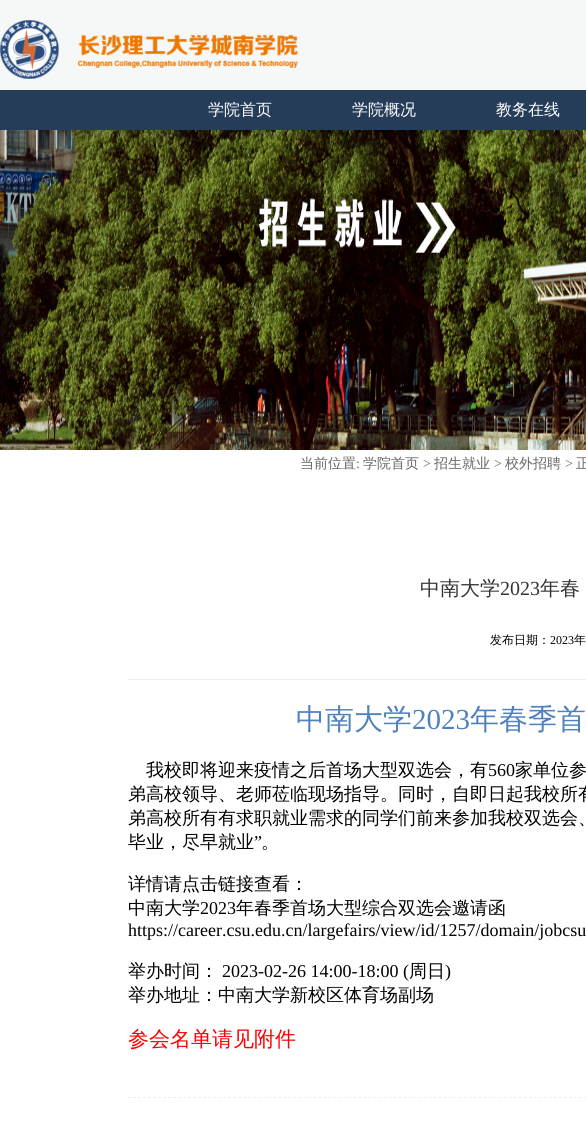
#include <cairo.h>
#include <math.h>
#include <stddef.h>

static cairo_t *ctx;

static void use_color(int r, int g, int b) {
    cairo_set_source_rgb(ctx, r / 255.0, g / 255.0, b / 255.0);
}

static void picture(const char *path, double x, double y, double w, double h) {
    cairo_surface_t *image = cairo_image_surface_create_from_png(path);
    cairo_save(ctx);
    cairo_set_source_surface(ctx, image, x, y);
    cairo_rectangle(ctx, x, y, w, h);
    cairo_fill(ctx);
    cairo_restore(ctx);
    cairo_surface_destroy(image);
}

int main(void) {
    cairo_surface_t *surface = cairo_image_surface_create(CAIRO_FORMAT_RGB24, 586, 1124);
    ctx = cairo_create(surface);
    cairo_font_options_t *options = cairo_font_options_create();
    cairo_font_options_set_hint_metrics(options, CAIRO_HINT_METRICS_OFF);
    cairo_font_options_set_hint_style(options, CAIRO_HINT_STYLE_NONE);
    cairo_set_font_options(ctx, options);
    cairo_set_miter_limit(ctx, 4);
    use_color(255, 255, 255);
    cairo_paint(ctx);
    use_color(246, 247, 247);
    cairo_rectangle(ctx, 0, 0, 586, 90);
    cairo_fill(ctx);
    picture("img1.png", 0, 20, 298, 59);
    use_color(38, 61, 89);
    cairo_rectangle(ctx, 0, 90, 586, 40);
    cairo_fill(ctx);
    cairo_select_font_face(ctx, "WenQuanYi Zen Hei Medium", CAIRO_FONT_SLANT_NORMAL, CAIRO_FONT_WEIGHT_NORMAL);
    cairo_set_font_size(ctx, 16);
    use_color(255, 255, 255);
    cairo_move_to(ctx, 208, 115);
    cairo_show_text(ctx, "学院首页");
    cairo_move_to(ctx, 352, 115);
    cairo_show_text(ctx, "学院概况");
    cairo_move_to(ctx, 496, 115);
    cairo_show_text(ctx, "教务在线");
    picture("img2.png", 0, 130, 586, 320);
    cairo_set_font_size(ctx, 14);
    use_color(102, 102, 102);
    cairo_move_to(ctx, 300, 468);
    cairo_show_text(ctx, "当前位置");
    cairo_select_font_face(ctx, "Liberation Serif", CAIRO_FONT_SLANT_NORMAL, CAIRO_FONT_WEIGHT_NORMAL);
    cairo_move_to(ctx, 356, 468);
    cairo_show_text(ctx, ":");
    cairo_select_font_face(ctx, "WenQuanYi Zen Hei Medium", CAIRO_FONT_SLANT_NORMAL, CAIRO_FONT_WEIGHT_NORMAL);
    cairo_move_to(ctx, 363, 468);
    cairo_show_text(ctx, "学院首页");
    cairo_select_font_face(ctx, "Liberation Serif", CAIRO_FONT_SLANT_NORMAL, CAIRO_FONT_WEIGHT_NORMAL);
    cairo_move_to(ctx, 423, 468);
    cairo_show_text(ctx, ">");
    cairo_select_font_face(ctx, "WenQuanYi Zen Hei Medium", CAIRO_FONT_SLANT_NORMAL, CAIRO_FONT_WEIGHT_NORMAL);
    cairo_move_to(ctx, 434, 468);
    cairo_show_text(ctx, "招生就业");
    cairo_select_font_face(ctx, "Liberation Serif", CAIRO_FONT_SLANT_NORMAL, CAIRO_FONT_WEIGHT_NORMAL);
    cairo_move_to(ctx, 494, 468);
    cairo_show_text(ctx, ">");
    cairo_select_font_face(ctx, "WenQuanYi Zen Hei Medium", CAIRO_FONT_SLANT_NORMAL, CAIRO_FONT_WEIGHT_NORMAL);
    cairo_move_to(ctx, 505, 468);
    cairo_show_text(ctx, "校外招聘");
    cairo_select_font_face(ctx, "Liberation Serif", CAIRO_FONT_SLANT_NORMAL, CAIRO_FONT_WEIGHT_NORMAL);
    cairo_move_to(ctx, 565, 468);
    cairo_show_text(ctx, ">");
    cairo_select_font_face(ctx, "WenQuanYi Zen Hei Medium", CAIRO_FONT_SLANT_NORMAL, CAIRO_FONT_WEIGHT_NORMAL);
    cairo_move_to(ctx, 576, 468);
    cairo_show_text(ctx, "正");
    cairo_set_font_size(ctx, 20);
    use_color(51, 51, 51);
    cairo_move_to(ctx, 420, 595);
    cairo_show_text(ctx, "中南大学");
    cairo_select_font_face(ctx, "Liberation Serif", CAIRO_FONT_SLANT_NORMAL, CAIRO_FONT_WEIGHT_NORMAL);
    cairo_move_to(ctx, 500, 595);
    cairo_show_text(ctx, "2023");
    cairo_select_font_face(ctx, "WenQuanYi Zen Hei Medium", CAIRO_FONT_SLANT_NORMAL, CAIRO_FONT_WEIGHT_NORMAL);
    cairo_move_to(ctx, 540, 595);
    cairo_show_text(ctx, "年春");
    cairo_set_font_size(ctx, 12);
    use_color(0, 0, 0);
    cairo_move_to(ctx, 490, 644);
    cairo_show_text(ctx, "发布日期：");
    cairo_select_font_face(ctx, "Liberation Serif", CAIRO_FONT_SLANT_NORMAL, CAIRO_FONT_WEIGHT_NORMAL);
    cairo_move_to(ctx, 550, 644);
    cairo_show_text(ctx, "2023");
    cairo_select_font_face(ctx, "WenQuanYi Zen Hei Medium", CAIRO_FONT_SLANT_NORMAL, CAIRO_FONT_WEIGHT_NORMAL);
    cairo_move_to(ctx, 574, 644);
    cairo_show_text(ctx, "年");
    use_color(240, 239, 239);
    cairo_rectangle(ctx, 128, 679, 458, 1);
    cairo_fill(ctx);
    cairo_set_font_size(ctx, 29);
    use_color(79, 129, 189);
    cairo_move_to(ctx, 296, 729);
    cairo_show_text(ctx, "中南大学");
    cairo_select_font_face(ctx, "Liberation Serif", CAIRO_FONT_SLANT_NORMAL, CAIRO_FONT_WEIGHT_NORMAL);
    cairo_move_to(ctx, 412, 729);
    cairo_show_text(ctx, "2023");
    cairo_select_font_face(ctx, "WenQuanYi Zen Hei Medium", CAIRO_FONT_SLANT_NORMAL, CAIRO_FONT_WEIGHT_NORMAL);
    cairo_move_to(ctx, 470, 729);
    cairo_show_text(ctx, "年春季首");
    cairo_set_font_size(ctx, 18);
    use_color(0, 0, 0);
    cairo_move_to(ctx, 146, 776);
    cairo_show_text(ctx, "我校即将迎来疫情之后首场大型双选会，有");
    cairo_select_font_face(ctx, "Liberation Serif", CAIRO_FONT_SLANT_NORMAL, CAIRO_FONT_WEIGHT_NORMAL);
    cairo_move_to(ctx, 488, 776);
    cairo_show_text(ctx, "560");
    cairo_select_font_face(ctx, "WenQuanYi Zen Hei Medium", CAIRO_FONT_SLANT_NORMAL, CAIRO_FONT_WEIGHT_NORMAL);
    cairo_move_to(ctx, 515, 776);
    cairo_show_text(ctx, "家单位参");
    cairo_move_to(ctx, 128, 800);
    cairo_show_text(ctx, "弟高校领导、老师莅临现场指导。同时，自即日起我校所有");
    cairo_move_to(ctx, 128, 824);
    cairo_show_text(ctx, "弟高校所有有求职就业需求的同学们前来参加我校双选会、");
    cairo_move_to(ctx, 128, 848);
    cairo_show_text(ctx, "毕业，尽早就业");
    cairo_select_font_face(ctx, "Liberation Serif", CAIRO_FONT_SLANT_NORMAL, CAIRO_FONT_WEIGHT_NORMAL);
    cairo_move_to(ctx, 254, 848);
    cairo_show_text(ctx, "”");
    cairo_select_font_face(ctx, "WenQuanYi Zen Hei Medium", CAIRO_FONT_SLANT_NORMAL, CAIRO_FONT_WEIGHT_NORMAL);
    cairo_move_to(ctx, 261, 848);
    cairo_show_text(ctx, "。");
    cairo_move_to(ctx, 128, 890);
    cairo_show_text(ctx, "详情请点击链接查看：");
    cairo_move_to(ctx, 128, 914);
    cairo_show_text(ctx, "中南大学");
    cairo_select_font_face(ctx, "Liberation Serif", CAIRO_FONT_SLANT_NORMAL, CAIRO_FONT_WEIGHT_NORMAL);
    cairo_move_to(ctx, 200, 914);
    cairo_show_text(ctx, "2023");
    cairo_select_font_face(ctx, "WenQuanYi Zen Hei Medium", CAIRO_FONT_SLANT_NORMAL, CAIRO_FONT_WEIGHT_NORMAL);
    cairo_move_to(ctx, 236, 914);
    cairo_show_text(ctx, "年春季首场大型综合双选会邀请函");
    cairo_select_font_face(ctx, "Liberation Serif", CAIRO_FONT_SLANT_NORMAL, CAIRO_FONT_WEIGHT_NORMAL);
    cairo_move_to(ctx, 128, 936);
    cairo_show_text(ctx, "https://career.csu.edu.cn/largefairs/view/id/1257/domain/jobcsu");
    cairo_select_font_face(ctx, "WenQuanYi Zen Hei Medium", CAIRO_FONT_SLANT_NORMAL, CAIRO_FONT_WEIGHT_NORMAL);
    cairo_move_to(ctx, 128, 977);
    cairo_show_text(ctx, "举办时间：");
    cairo_select_font_face(ctx, "Liberation Serif", CAIRO_FONT_SLANT_NORMAL, CAIRO_FONT_WEIGHT_NORMAL);
    cairo_move_to(ctx, 222, 977);
    cairo_show_text(ctx, "2023-02-26 14:00-18:00 (");
    cairo_select_font_face(ctx, "WenQuanYi Zen Hei Medium", CAIRO_FONT_SLANT_NORMAL, CAIRO_FONT_WEIGHT_NORMAL);
    cairo_move_to(ctx, 409, 977);
    cairo_show_text(ctx, "周日");
    cairo_select_font_face(ctx, "Liberation Serif", CAIRO_FONT_SLANT_NORMAL, CAIRO_FONT_WEIGHT_NORMAL);
    cairo_move_to(ctx, 445, 977);
    cairo_show_text(ctx, ")");
    cairo_select_font_face(ctx, "WenQuanYi Zen Hei Medium", CAIRO_FONT_SLANT_NORMAL, CAIRO_FONT_WEIGHT_NORMAL);
    cairo_move_to(ctx, 128, 1001);
    cairo_show_text(ctx, "举办地址：中南大学新校区体育场副场");
    cairo_set_font_size(ctx, 21);
    use_color(255, 0, 0);
    cairo_move_to(ctx, 128, 1046);
    cairo_show_text(ctx, "参会名单请见附件");
    cairo_new_path(ctx);
    cairo_move_to(ctx, 128, 1097.5);
    cairo_line_to(ctx, 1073, 1097.5);
    use_color(240, 239, 239);
    cairo_set_line_width(ctx, 1);
    cairo_set_dash(ctx, (double[]){3, 2.01}, 2, 0);
    cairo_stroke(ctx);
    cairo_surface_write_to_png(surface, "result.png");
    cairo_font_options_destroy(options);
    cairo_destroy(ctx);
    cairo_surface_destroy(surface);
    return 0;
}
